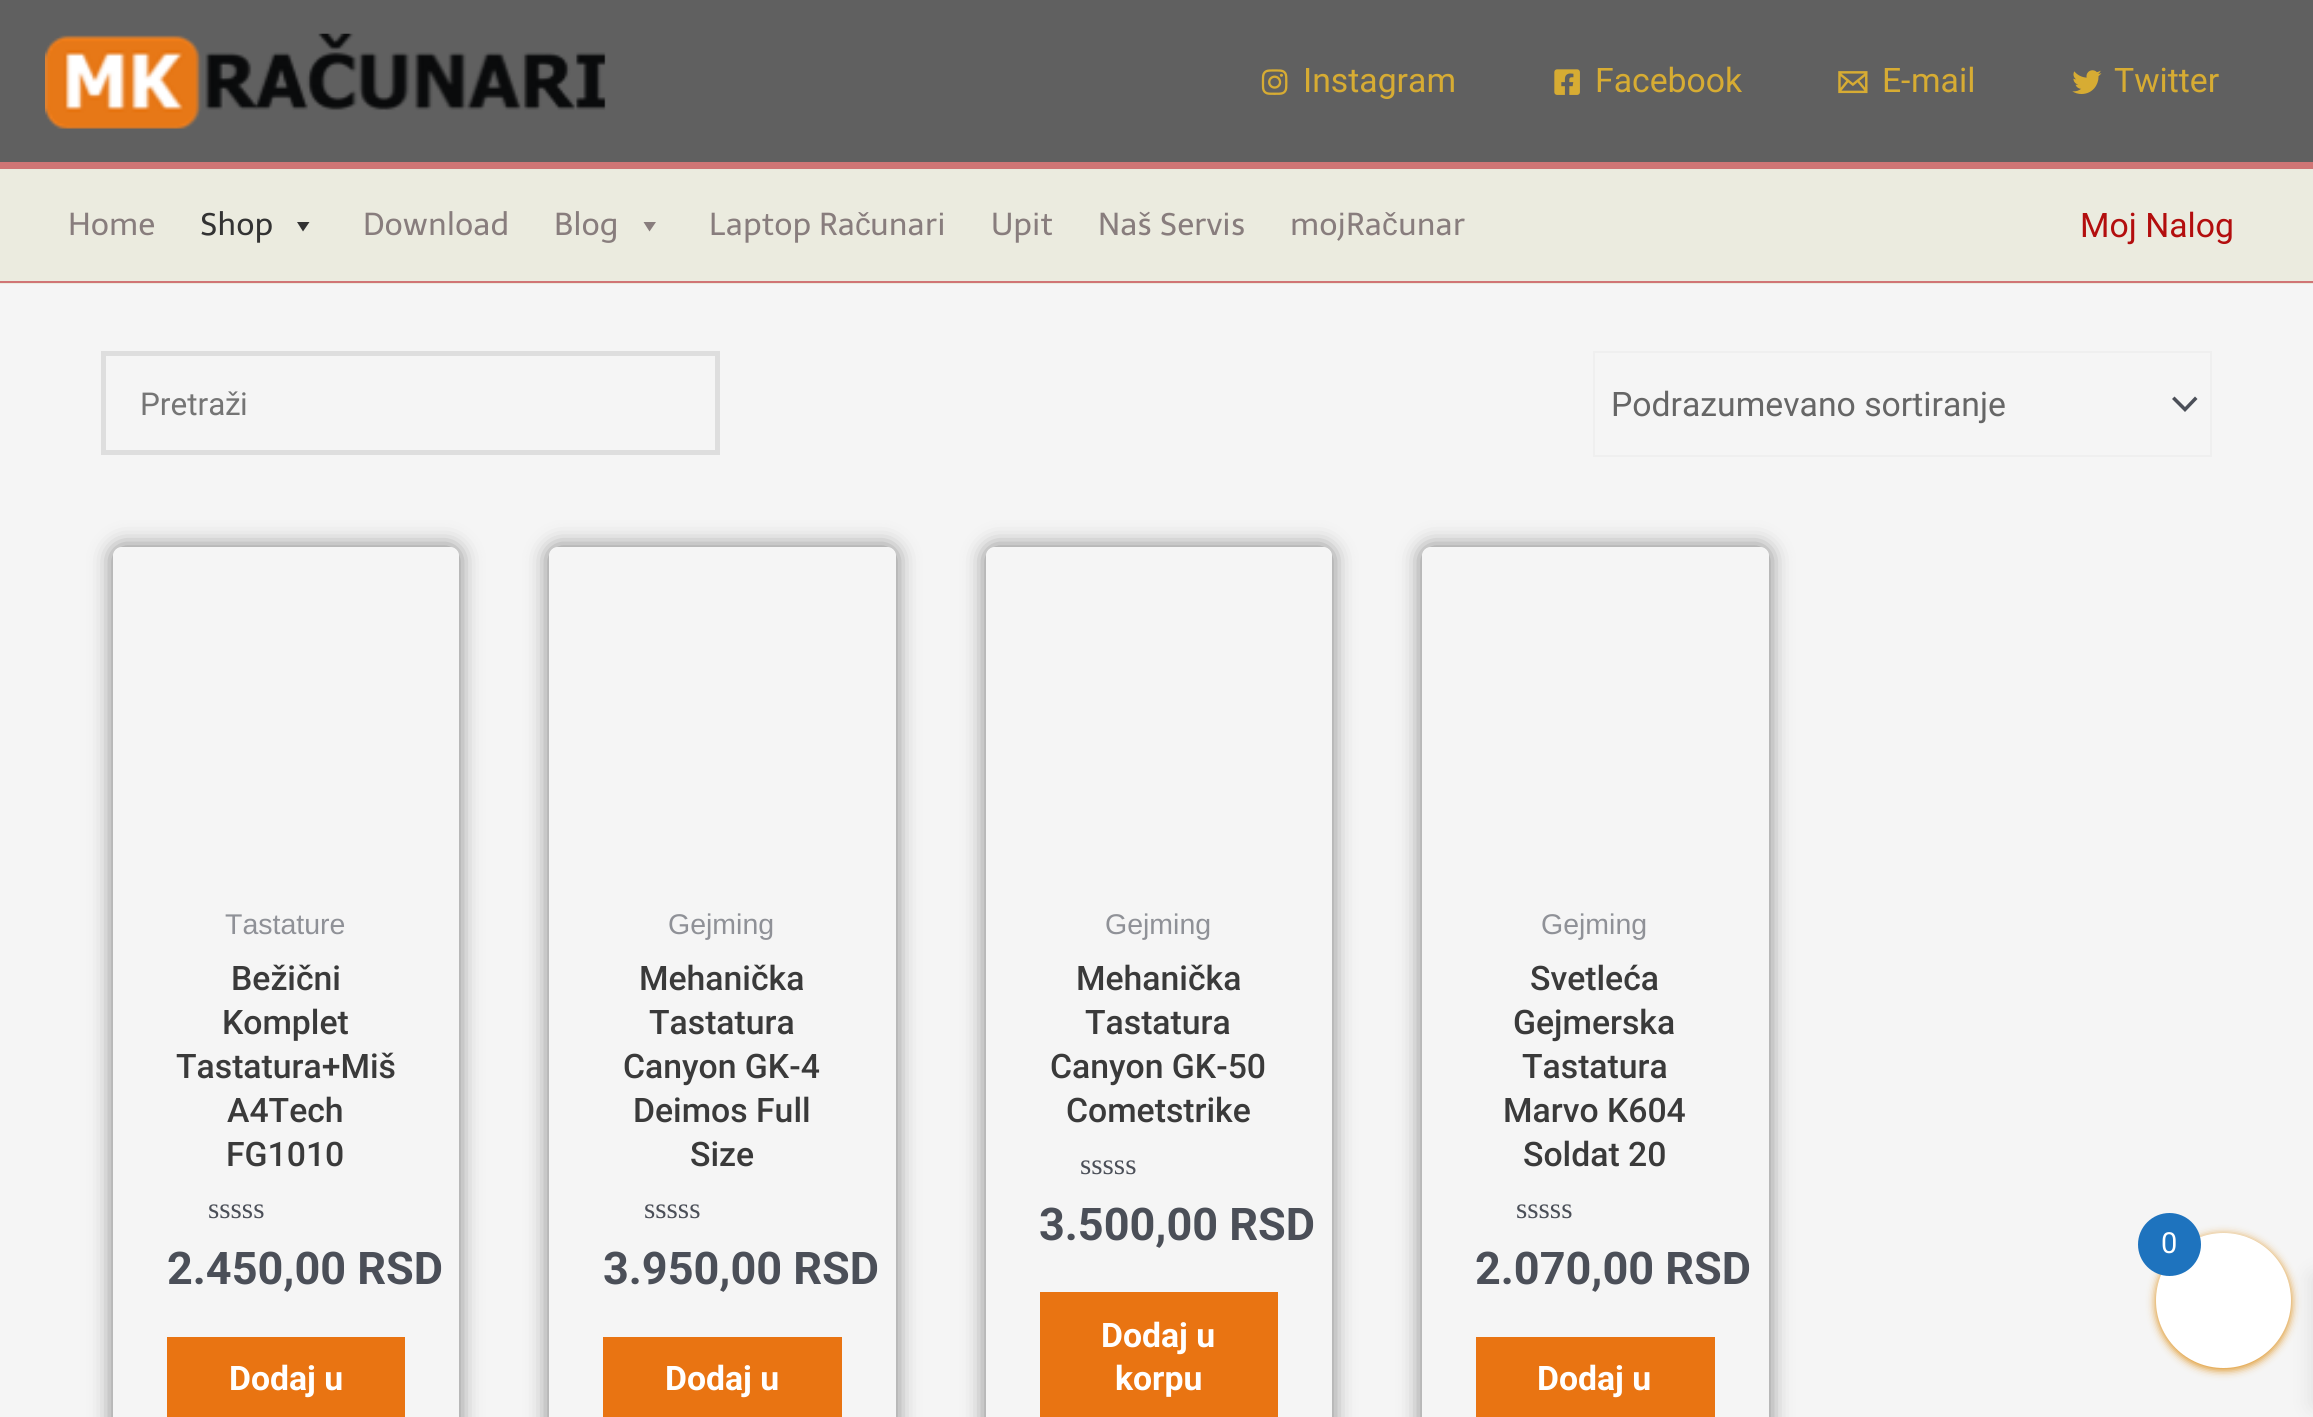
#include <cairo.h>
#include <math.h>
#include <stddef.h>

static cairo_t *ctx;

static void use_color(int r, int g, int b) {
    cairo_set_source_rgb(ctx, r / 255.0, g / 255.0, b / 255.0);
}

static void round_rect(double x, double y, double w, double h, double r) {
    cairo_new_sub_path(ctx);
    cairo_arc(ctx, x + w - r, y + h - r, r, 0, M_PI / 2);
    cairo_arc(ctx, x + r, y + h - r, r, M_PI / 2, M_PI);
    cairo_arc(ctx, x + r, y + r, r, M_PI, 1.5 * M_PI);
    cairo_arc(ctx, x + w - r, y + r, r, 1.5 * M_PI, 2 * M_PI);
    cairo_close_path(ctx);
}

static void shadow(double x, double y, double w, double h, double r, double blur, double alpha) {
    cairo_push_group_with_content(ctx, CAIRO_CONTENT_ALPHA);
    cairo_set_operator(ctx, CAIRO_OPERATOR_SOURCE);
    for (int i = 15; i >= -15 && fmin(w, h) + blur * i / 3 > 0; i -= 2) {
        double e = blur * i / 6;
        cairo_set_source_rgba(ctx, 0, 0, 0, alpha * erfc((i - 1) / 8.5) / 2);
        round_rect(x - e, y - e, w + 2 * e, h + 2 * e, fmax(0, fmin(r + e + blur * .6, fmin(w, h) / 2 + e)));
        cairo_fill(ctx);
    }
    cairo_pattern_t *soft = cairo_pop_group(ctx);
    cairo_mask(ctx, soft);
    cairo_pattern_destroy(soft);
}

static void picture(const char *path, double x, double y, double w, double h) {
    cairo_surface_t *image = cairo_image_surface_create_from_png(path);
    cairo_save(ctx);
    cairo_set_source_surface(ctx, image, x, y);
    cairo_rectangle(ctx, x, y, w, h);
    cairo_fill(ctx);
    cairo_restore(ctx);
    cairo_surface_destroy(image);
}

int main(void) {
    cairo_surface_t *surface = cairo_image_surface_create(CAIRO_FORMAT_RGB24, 2313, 1417);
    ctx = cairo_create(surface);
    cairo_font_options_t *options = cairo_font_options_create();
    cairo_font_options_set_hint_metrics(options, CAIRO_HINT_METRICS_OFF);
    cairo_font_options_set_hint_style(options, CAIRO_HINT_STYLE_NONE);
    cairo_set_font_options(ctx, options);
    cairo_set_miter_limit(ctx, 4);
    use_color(245, 245, 245);
    cairo_paint(ctx);
    use_color(96, 96, 96);
    cairo_rectangle(ctx, 0, 0, 2313, 162);
    cairo_fill(ctx);
    use_color(208, 117, 117);
    cairo_rectangle(ctx, 0, 162, 2313, 7);
    cairo_fill(ctx);
    picture("img1.png", 45, 33, 561, 96);
    picture("img2.png", 1261, 69, 27, 26);
    cairo_select_font_face(ctx, "Roboto", CAIRO_FONT_SLANT_NORMAL, CAIRO_FONT_WEIGHT_NORMAL);
    cairo_set_font_size(ctx, 33.75);
    use_color(215, 172, 51);
    cairo_move_to(ctx, 1303, 92);
    cairo_show_text(ctx, "Instagram");
    picture("img3.png", 1554, 69, 26, 26);
    cairo_move_to(ctx, 1595, 92);
    cairo_show_text(ctx, "Facebook");
    picture("img4.png", 1838, 71, 30, 23);
    cairo_move_to(ctx, 1882, 92);
    cairo_show_text(ctx, "E");
    cairo_select_font_face(ctx, "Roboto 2", CAIRO_FONT_SLANT_NORMAL, CAIRO_FONT_WEIGHT_NORMAL);
    cairo_move_to(ctx, 1901, 92);
    cairo_show_text(ctx, "-");
    cairo_select_font_face(ctx, "Roboto", CAIRO_FONT_SLANT_NORMAL, CAIRO_FONT_WEIGHT_NORMAL);
    cairo_move_to(ctx, 1911, 92);
    cairo_show_text(ctx, "mail");
    picture("img5.png", 2072, 70, 30, 24);
    cairo_move_to(ctx, 2114, 92);
    cairo_show_text(ctx, "Twitter");
    use_color(235, 235, 223);
    cairo_rectangle(ctx, 0, 169, 2313, 115);
    cairo_fill(ctx);
    use_color(208, 117, 117);
    cairo_rectangle(ctx, 0, 281, 2313, 2);
    cairo_fill(ctx);
    cairo_select_font_face(ctx, "Telex", CAIRO_FONT_SLANT_NORMAL, CAIRO_FONT_WEIGHT_NORMAL);
    cairo_set_font_size(ctx, 31.5);
    use_color(136, 125, 125);
    cairo_move_to(ctx, 68, 235);
    cairo_show_text(ctx, "Home");
    use_color(51, 51, 51);
    cairo_move_to(ctx, 200, 235);
    cairo_show_text(ctx, "Shop");
    cairo_new_path(ctx);
    cairo_move_to(ctx, 309.5, 222);
    cairo_line_to(ctx, 303, 231.5);
    cairo_line_to(ctx, 297, 222);
    cairo_close_path(ctx);
    cairo_fill(ctx);
    use_color(136, 125, 125);
    cairo_move_to(ctx, 363, 235);
    cairo_show_text(ctx, "Download");
    cairo_move_to(ctx, 554, 235);
    cairo_show_text(ctx, "Blog");
    cairo_new_path(ctx);
    cairo_move_to(ctx, 656, 222);
    cairo_line_to(ctx, 649.5, 231.5);
    cairo_line_to(ctx, 643.5, 222);
    cairo_close_path(ctx);
    cairo_fill(ctx);
    cairo_move_to(ctx, 709, 235);
    cairo_show_text(ctx, "Laptop Ra");
    cairo_select_font_face(ctx, "Liberation Sans", CAIRO_FONT_SLANT_NORMAL, CAIRO_FONT_WEIGHT_NORMAL);
    cairo_move_to(ctx, 855, 235);
    cairo_show_text(ctx, "č");
    cairo_select_font_face(ctx, "Telex", CAIRO_FONT_SLANT_NORMAL, CAIRO_FONT_WEIGHT_NORMAL);
    cairo_move_to(ctx, 870, 235);
    cairo_show_text(ctx, "unari");
    cairo_move_to(ctx, 991, 235);
    cairo_show_text(ctx, "Upit");
    cairo_move_to(ctx, 1098, 235);
    cairo_show_text(ctx, "Naš Servis");
    cairo_move_to(ctx, 1290, 235);
    cairo_show_text(ctx, "mojRa");
    cairo_select_font_face(ctx, "Liberation Sans", CAIRO_FONT_SLANT_NORMAL, CAIRO_FONT_WEIGHT_NORMAL);
    cairo_move_to(ctx, 1382, 235);
    cairo_show_text(ctx, "č");
    cairo_select_font_face(ctx, "Telex", CAIRO_FONT_SLANT_NORMAL, CAIRO_FONT_WEIGHT_NORMAL);
    cairo_move_to(ctx, 1398, 235);
    cairo_show_text(ctx, "unar");
    cairo_select_font_face(ctx, "Roboto", CAIRO_FONT_SLANT_NORMAL, CAIRO_FONT_WEIGHT_NORMAL);
    cairo_set_font_size(ctx, 33.75);
    use_color(179, 14, 14);
    cairo_move_to(ctx, 2080, 237);
    cairo_show_text(ctx, "Moj Nalog");
    cairo_rectangle(ctx, 103.5, 353.5, 614, 99);
    use_color(222, 222, 222);
    cairo_set_line_width(ctx, 5);
    cairo_stroke(ctx);
    cairo_set_font_size(ctx, 31.5);
    use_color(117, 117, 117);
    cairo_move_to(ctx, 140, 415);
    cairo_show_text(ctx, "Pretra");
    cairo_select_font_face(ctx, "Roboto 2", CAIRO_FONT_SLANT_NORMAL, CAIRO_FONT_WEIGHT_NORMAL);
    cairo_move_to(ctx, 225, 415);
    cairo_show_text(ctx, "ž");
    cairo_select_font_face(ctx, "Roboto", CAIRO_FONT_SLANT_NORMAL, CAIRO_FONT_WEIGHT_NORMAL);
    cairo_move_to(ctx, 240, 415);
    cairo_show_text(ctx, "i");
    cairo_rectangle(ctx, 1594, 352, 617, 104);
    use_color(239, 239, 239);
    cairo_set_line_width(ctx, 2);
    cairo_stroke(ctx);
    use_color(75, 79, 88);
    cairo_new_path(ctx);
    cairo_move_to(ctx, 2172, 399);
    cairo_line_to(ctx, 2185, 412);
    cairo_line_to(ctx, 2197.5, 399);
    cairo_line_to(ctx, 2195, 396.5);
    cairo_line_to(ctx, 2185, 407);
    cairo_line_to(ctx, 2174.5, 396.5);
    cairo_close_path(ctx);
    cairo_fill(ctx);
    cairo_set_font_size(ctx, 33.75);
    use_color(102, 102, 102);
    cairo_move_to(ctx, 1611, 416);
    cairo_show_text(ctx, "Podrazumevano sortiranje");
    cairo_save(ctx);
    cairo_set_fill_rule(ctx, CAIRO_FILL_RULE_EVEN_ODD);
    cairo_new_path(ctx);
    cairo_move_to(ctx, 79, 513);
    cairo_line_to(ctx, 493, 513);
    cairo_line_to(ctx, 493, 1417);
    cairo_line_to(ctx, 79, 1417);
    cairo_close_path(ctx);
    cairo_move_to(ctx, 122, 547);
    cairo_line_to(ctx, 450, 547);
    cairo_curve_to(ctx, 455, 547, 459, 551, 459, 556);
    cairo_line_to(ctx, 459, 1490);
    cairo_curve_to(ctx, 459, 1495, 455, 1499, 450, 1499);
    cairo_line_to(ctx, 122, 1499);
    cairo_curve_to(ctx, 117, 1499, 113, 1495, 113, 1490);
    cairo_line_to(ctx, 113, 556);
    cairo_curve_to(ctx, 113, 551, 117, 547, 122, 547);
    cairo_close_path(ctx);
    cairo_clip(ctx);
    use_color(0, 0, 0);
    shadow(113, 547, 346, 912, 9, 11, 0.5);
    cairo_restore(ctx);
    cairo_select_font_face(ctx, "Liberation Sans", CAIRO_FONT_SLANT_NORMAL, CAIRO_FONT_WEIGHT_NORMAL);
    cairo_set_font_size(ctx, 28.5);
    use_color(143, 145, 151);
    cairo_move_to(ctx, 225, 934);
    cairo_show_text(ctx, "Tastature");
    cairo_select_font_face(ctx, "Roboto Medium", CAIRO_FONT_SLANT_NORMAL, CAIRO_FONT_WEIGHT_NORMAL);
    cairo_set_font_size(ctx, 33.75);
    use_color(58, 58, 58);
    cairo_move_to(ctx, 231, 990);
    cairo_show_text(ctx, "Bežični");
    cairo_move_to(ctx, 222, 1034);
    cairo_show_text(ctx, "Komplet");
    cairo_move_to(ctx, 176, 1078);
    cairo_show_text(ctx, "Tastatura+Miš");
    cairo_move_to(ctx, 227, 1122);
    cairo_show_text(ctx, "A4Tech");
    cairo_move_to(ctx, 226, 1166);
    cairo_show_text(ctx, "FG1010");
    cairo_select_font_face(ctx, "Liberation Serif", CAIRO_FONT_SLANT_NORMAL, CAIRO_FONT_WEIGHT_NORMAL);
    cairo_set_font_size(ctx, 29);
    use_color(75, 79, 88);
    cairo_move_to(ctx, 208, 1218);
    cairo_show_text(ctx, "sssss");
    cairo_select_font_face(ctx, "Roboto", CAIRO_FONT_SLANT_NORMAL, CAIRO_FONT_WEIGHT_BOLD);
    cairo_set_font_size(ctx, 45);
    cairo_move_to(ctx, 167, 1284);
    cairo_show_text(ctx, "2.450,00 RSD");
    use_color(233, 116, 18);
    cairo_rectangle(ctx, 167, 1337, 238, 80);
    cairo_fill(ctx);
    cairo_set_font_size(ctx, 33.75);
    use_color(255, 255, 255);
    cairo_move_to(ctx, 229, 1390);
    cairo_show_text(ctx, "Dodaj u");
    cairo_save(ctx);
    cairo_set_fill_rule(ctx, CAIRO_FILL_RULE_EVEN_ODD);
    cairo_new_path(ctx);
    cairo_move_to(ctx, 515, 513);
    cairo_line_to(ctx, 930, 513);
    cairo_line_to(ctx, 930, 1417);
    cairo_line_to(ctx, 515, 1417);
    cairo_close_path(ctx);
    cairo_move_to(ctx, 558, 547);
    cairo_line_to(ctx, 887, 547);
    cairo_curve_to(ctx, 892, 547, 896, 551, 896, 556);
    cairo_line_to(ctx, 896, 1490);
    cairo_curve_to(ctx, 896, 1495, 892, 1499, 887, 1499);
    cairo_line_to(ctx, 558, 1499);
    cairo_curve_to(ctx, 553, 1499, 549, 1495, 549, 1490);
    cairo_line_to(ctx, 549, 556);
    cairo_curve_to(ctx, 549, 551, 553, 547, 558, 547);
    cairo_close_path(ctx);
    cairo_clip(ctx);
    use_color(0, 0, 0);
    shadow(549, 547, 347, 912, 9, 11, 0.5);
    cairo_restore(ctx);
    cairo_select_font_face(ctx, "Liberation Sans", CAIRO_FONT_SLANT_NORMAL, CAIRO_FONT_WEIGHT_NORMAL);
    cairo_set_font_size(ctx, 28.5);
    use_color(143, 145, 151);
    cairo_move_to(ctx, 668, 934);
    cairo_show_text(ctx, "Gejming");
    cairo_select_font_face(ctx, "Roboto Medium", CAIRO_FONT_SLANT_NORMAL, CAIRO_FONT_WEIGHT_NORMAL);
    cairo_set_font_size(ctx, 33.75);
    use_color(58, 58, 58);
    cairo_move_to(ctx, 639, 990);
    cairo_show_text(ctx, "Mehanička");
    cairo_move_to(ctx, 649, 1034);
    cairo_show_text(ctx, "Tastatura");
    cairo_move_to(ctx, 623, 1078);
    cairo_show_text(ctx, "Canyon GK-4");
    cairo_move_to(ctx, 633, 1122);
    cairo_show_text(ctx, "Deimos Full");
    cairo_move_to(ctx, 690, 1166);
    cairo_show_text(ctx, "Size");
    cairo_select_font_face(ctx, "Liberation Serif", CAIRO_FONT_SLANT_NORMAL, CAIRO_FONT_WEIGHT_NORMAL);
    cairo_set_font_size(ctx, 29);
    use_color(75, 79, 88);
    cairo_move_to(ctx, 644, 1218);
    cairo_show_text(ctx, "sssss");
    cairo_select_font_face(ctx, "Roboto", CAIRO_FONT_SLANT_NORMAL, CAIRO_FONT_WEIGHT_BOLD);
    cairo_set_font_size(ctx, 45);
    cairo_move_to(ctx, 603, 1284);
    cairo_show_text(ctx, "3.950,00 RSD");
    use_color(233, 116, 18);
    cairo_rectangle(ctx, 603, 1337, 239, 80);
    cairo_fill(ctx);
    cairo_set_font_size(ctx, 33.75);
    use_color(255, 255, 255);
    cairo_move_to(ctx, 665, 1390);
    cairo_show_text(ctx, "Dodaj u");
    cairo_save(ctx);
    cairo_set_fill_rule(ctx, CAIRO_FILL_RULE_EVEN_ODD);
    cairo_new_path(ctx);
    cairo_move_to(ctx, 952, 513);
    cairo_line_to(ctx, 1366, 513);
    cairo_line_to(ctx, 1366, 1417);
    cairo_line_to(ctx, 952, 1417);
    cairo_close_path(ctx);
    cairo_move_to(ctx, 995, 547);
    cairo_line_to(ctx, 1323, 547);
    cairo_curve_to(ctx, 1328, 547, 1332, 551, 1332, 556);
    cairo_line_to(ctx, 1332, 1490);
    cairo_curve_to(ctx, 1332, 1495, 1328, 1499, 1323, 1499);
    cairo_line_to(ctx, 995, 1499);
    cairo_curve_to(ctx, 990, 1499, 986, 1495, 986, 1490);
    cairo_line_to(ctx, 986, 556);
    cairo_curve_to(ctx, 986, 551, 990, 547, 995, 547);
    cairo_close_path(ctx);
    cairo_clip(ctx);
    use_color(0, 0, 0);
    shadow(986, 547, 346, 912, 9, 11, 0.5);
    cairo_restore(ctx);
    cairo_select_font_face(ctx, "Liberation Sans", CAIRO_FONT_SLANT_NORMAL, CAIRO_FONT_WEIGHT_NORMAL);
    cairo_set_font_size(ctx, 28.5);
    use_color(143, 145, 151);
    cairo_move_to(ctx, 1105, 934);
    cairo_show_text(ctx, "Gejming");
    cairo_select_font_face(ctx, "Roboto Medium", CAIRO_FONT_SLANT_NORMAL, CAIRO_FONT_WEIGHT_NORMAL);
    cairo_set_font_size(ctx, 33.75);
    use_color(58, 58, 58);
    cairo_move_to(ctx, 1076, 990);
    cairo_show_text(ctx, "Mehanička");
    cairo_move_to(ctx, 1085, 1034);
    cairo_show_text(ctx, "Tastatura");
    cairo_move_to(ctx, 1050, 1078);
    cairo_show_text(ctx, "Canyon GK-50");
    cairo_move_to(ctx, 1066, 1122);
    cairo_show_text(ctx, "Cometstrike");
    cairo_select_font_face(ctx, "Liberation Serif", CAIRO_FONT_SLANT_NORMAL, CAIRO_FONT_WEIGHT_NORMAL);
    cairo_set_font_size(ctx, 29);
    use_color(75, 79, 88);
    cairo_move_to(ctx, 1080, 1174);
    cairo_show_text(ctx, "sssss");
    cairo_select_font_face(ctx, "Roboto", CAIRO_FONT_SLANT_NORMAL, CAIRO_FONT_WEIGHT_BOLD);
    cairo_set_font_size(ctx, 45);
    cairo_move_to(ctx, 1039, 1240);
    cairo_show_text(ctx, "3.500,00 RSD");
    use_color(233, 116, 18);
    cairo_rectangle(ctx, 1040, 1292, 238, 125);
    cairo_fill(ctx);
    cairo_set_font_size(ctx, 33.75);
    use_color(255, 255, 255);
    cairo_move_to(ctx, 1101, 1347);
    cairo_show_text(ctx, "Dodaj u");
    cairo_move_to(ctx, 1115, 1390);
    cairo_show_text(ctx, "korpu");
    cairo_save(ctx);
    cairo_set_fill_rule(ctx, CAIRO_FILL_RULE_EVEN_ODD);
    cairo_new_path(ctx);
    cairo_move_to(ctx, 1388, 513);
    cairo_line_to(ctx, 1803, 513);
    cairo_line_to(ctx, 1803, 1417);
    cairo_line_to(ctx, 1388, 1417);
    cairo_close_path(ctx);
    cairo_move_to(ctx, 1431, 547);
    cairo_line_to(ctx, 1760, 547);
    cairo_curve_to(ctx, 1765, 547, 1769, 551, 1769, 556);
    cairo_line_to(ctx, 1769, 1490);
    cairo_curve_to(ctx, 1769, 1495, 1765, 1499, 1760, 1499);
    cairo_line_to(ctx, 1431, 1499);
    cairo_curve_to(ctx, 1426, 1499, 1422, 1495, 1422, 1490);
    cairo_line_to(ctx, 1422, 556);
    cairo_curve_to(ctx, 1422, 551, 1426, 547, 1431, 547);
    cairo_close_path(ctx);
    cairo_clip(ctx);
    use_color(0, 0, 0);
    shadow(1422, 547, 347, 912, 9, 11, 0.5);
    cairo_restore(ctx);
    cairo_select_font_face(ctx, "Liberation Sans", CAIRO_FONT_SLANT_NORMAL, CAIRO_FONT_WEIGHT_NORMAL);
    cairo_set_font_size(ctx, 28.5);
    use_color(143, 145, 151);
    cairo_move_to(ctx, 1541, 934);
    cairo_show_text(ctx, "Gejming");
    cairo_select_font_face(ctx, "Roboto Medium", CAIRO_FONT_SLANT_NORMAL, CAIRO_FONT_WEIGHT_NORMAL);
    cairo_set_font_size(ctx, 33.75);
    use_color(58, 58, 58);
    cairo_move_to(ctx, 1530, 990);
    cairo_show_text(ctx, "Svetleća");
    cairo_move_to(ctx, 1513, 1034);
    cairo_show_text(ctx, "Gejmerska");
    cairo_move_to(ctx, 1522, 1078);
    cairo_show_text(ctx, "Tastatura");
    cairo_move_to(ctx, 1503, 1122);
    cairo_show_text(ctx, "Marvo K604");
    cairo_move_to(ctx, 1523, 1166);
    cairo_show_text(ctx, "Soldat 20");
    cairo_select_font_face(ctx, "Liberation Serif", CAIRO_FONT_SLANT_NORMAL, CAIRO_FONT_WEIGHT_NORMAL);
    cairo_set_font_size(ctx, 29);
    use_color(75, 79, 88);
    cairo_move_to(ctx, 1516, 1218);
    cairo_show_text(ctx, "sssss");
    cairo_select_font_face(ctx, "Roboto", CAIRO_FONT_SLANT_NORMAL, CAIRO_FONT_WEIGHT_BOLD);
    cairo_set_font_size(ctx, 45);
    cairo_move_to(ctx, 1475, 1284);
    cairo_show_text(ctx, "2.070,00 RSD");
    use_color(233, 116, 18);
    cairo_rectangle(ctx, 1476, 1337, 239, 80);
    cairo_fill(ctx);
    cairo_set_font_size(ctx, 33.75);
    use_color(255, 255, 255);
    cairo_move_to(ctx, 1537, 1390);
    cairo_show_text(ctx, "Dodaj u");
    use_color(221, 137, 11);
    shadow(2156, 1235, 135, 135, 67.5, 4.5, 1);
    use_color(0, 0, 0);
    shadow(2313, 1276, 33, 130, 0, 11, 0.1);
    use_color(255, 255, 255);
    cairo_arc(ctx, 2223.5, 1300.5, 67.5, 0, 2 * M_PI);
    cairo_fill(ctx);
    use_color(30, 115, 190);
    cairo_arc(ctx, 2169.5, 1244.5, 31.5, 0, 2 * M_PI);
    cairo_fill(ctx);
    cairo_select_font_face(ctx, "Roboto", CAIRO_FONT_SLANT_NORMAL, CAIRO_FONT_WEIGHT_NORMAL);
    cairo_set_font_size(ctx, 29);
    use_color(255, 255, 255);
    cairo_move_to(ctx, 2161, 1253);
    cairo_show_text(ctx, "0");
    cairo_surface_write_to_png(surface, "result.png");
    cairo_font_options_destroy(options);
    cairo_destroy(ctx);
    cairo_surface_destroy(surface);
    return 0;
}
